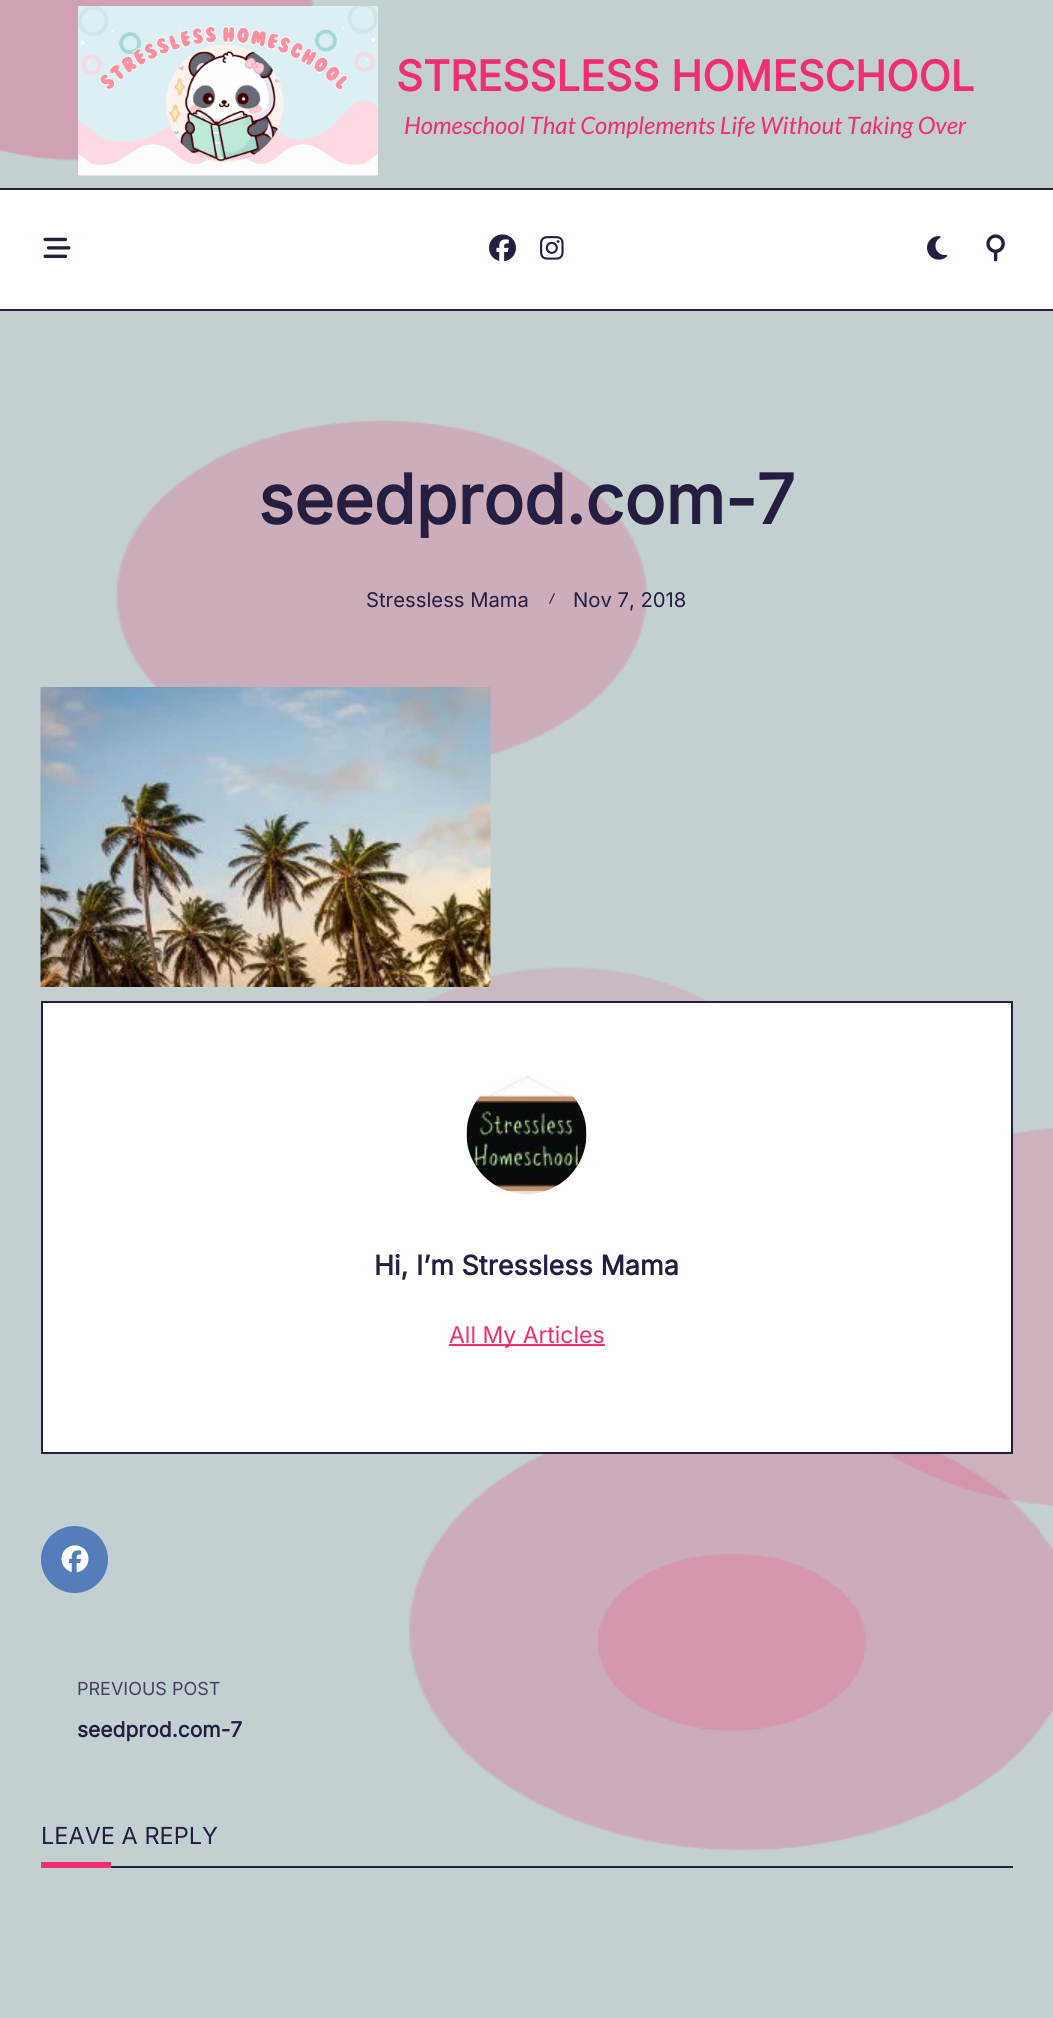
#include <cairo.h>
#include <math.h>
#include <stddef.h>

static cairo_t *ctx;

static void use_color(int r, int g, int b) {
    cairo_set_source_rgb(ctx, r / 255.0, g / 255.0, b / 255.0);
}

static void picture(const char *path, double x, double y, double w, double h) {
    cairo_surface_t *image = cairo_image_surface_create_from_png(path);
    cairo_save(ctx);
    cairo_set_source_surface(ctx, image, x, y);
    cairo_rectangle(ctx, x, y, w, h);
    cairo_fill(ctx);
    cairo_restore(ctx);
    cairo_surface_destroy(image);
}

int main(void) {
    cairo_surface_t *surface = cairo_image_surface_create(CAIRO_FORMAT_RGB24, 1053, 2018);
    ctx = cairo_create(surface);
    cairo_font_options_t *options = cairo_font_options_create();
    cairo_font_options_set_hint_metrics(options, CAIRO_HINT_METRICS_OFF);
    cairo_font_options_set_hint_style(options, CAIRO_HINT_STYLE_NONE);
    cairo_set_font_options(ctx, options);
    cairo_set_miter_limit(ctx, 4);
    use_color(194, 208, 209);
    cairo_paint(ctx);
    picture("img1.png", 0, 0, 1053, 1851);
    picture("img2.png", 78, 6, 300, 170);
    cairo_select_font_face(ctx, "Inter", CAIRO_FONT_SLANT_NORMAL, CAIRO_FONT_WEIGHT_BOLD);
    cairo_set_font_size(ctx, 42);
    use_color(243, 45, 113);
    cairo_move_to(ctx, 396, 91);
    cairo_show_text(ctx, "STRESSLESS HOMESCHOOL");
    cairo_select_font_face(ctx, "Lato", CAIRO_FONT_SLANT_ITALIC, CAIRO_FONT_WEIGHT_NORMAL);
    cairo_set_font_size(ctx, 24);
    cairo_move_to(ctx, 404, 134);
    cairo_show_text(ctx, "Homeschool That Complements Life Without Taking Over");
    use_color(38, 30, 64);
    cairo_rectangle(ctx, 0, 309, 1053, 2);
    cairo_fill(ctx);
    use_color(255, 255, 255);
    cairo_rectangle(ctx, 0, 190, 1053, 119);
    cairo_fill(ctx);
    use_color(38, 30, 64);
    cairo_rectangle(ctx, 0, 188, 1053, 2);
    cairo_fill(ctx);
    picture("img3.png", 43, 237, 28, 21);
    picture("img4.png", 489, 234, 27, 28);
    picture("img5.png", 540, 236, 24, 24);
    picture("img6.png", 927, 236, 21, 24);
    picture("img7.png", 986, 234, 19, 28);
    cairo_select_font_face(ctx, "Inter", CAIRO_FONT_SLANT_NORMAL, CAIRO_FONT_WEIGHT_BOLD);
    cairo_set_font_size(ctx, 68.25);
    cairo_move_to(ctx, 258, 524);
    cairo_show_text(ctx, "seedprod.com-7");
    cairo_select_font_face(ctx, "Inter", CAIRO_FONT_SLANT_NORMAL, CAIRO_FONT_WEIGHT_NORMAL);
    cairo_set_font_size(ctx, 20.25);
    cairo_move_to(ctx, 366, 607);
    cairo_show_text(ctx, "Stressless Mama");
    cairo_new_path(ctx);
    cairo_move_to(ctx, 549, 603.5);
    cairo_line_to(ctx, 554, 593);
    cairo_line_to(ctx, 555, 593.5);
    cairo_line_to(ctx, 550, 604);
    cairo_close_path(ctx);
    cairo_fill(ctx);
    cairo_move_to(ctx, 573, 607);
    cairo_show_text(ctx, "Nov 7, 2018");
    picture("img8.png", 40, 687, 451, 300);
    use_color(255, 255, 255);
    cairo_rectangle(ctx, 42, 1002, 970, 451);
    cairo_fill_preserve(ctx);
    use_color(38, 30, 64);
    cairo_stroke(ctx);
    picture("img9.png", 466, 1075, 121, 119);
    cairo_select_font_face(ctx, "Inter", CAIRO_FONT_SLANT_NORMAL, CAIRO_FONT_WEIGHT_BOLD);
    cairo_set_font_size(ctx, 27);
    cairo_move_to(ctx, 374, 1275);
    cairo_show_text(ctx, "Hi, I’m Stressless Mama");
    use_color(243, 45, 113);
    cairo_rectangle(ctx, 449, 1344, 156, 2);
    cairo_fill(ctx);
    cairo_select_font_face(ctx, "Inter", CAIRO_FONT_SLANT_NORMAL, CAIRO_FONT_WEIGHT_NORMAL);
    cairo_set_font_size(ctx, 23);
    cairo_move_to(ctx, 449, 1343);
    cairo_show_text(ctx, "All My Articles");
    use_color(85, 125, 188);
    cairo_new_path(ctx);
    cairo_arc(ctx, 74.5, 1559.5, 33.5, 0, 2 * M_PI);
    cairo_fill(ctx);
    picture("img10.png", 61, 1545, 28, 28);
    cairo_set_font_size(ctx, 18);
    use_color(69, 66, 93);
    cairo_move_to(ctx, 77, 1695);
    cairo_show_text(ctx, "PREVIOUS POST");
    cairo_select_font_face(ctx, "Inter", CAIRO_FONT_SLANT_NORMAL, CAIRO_FONT_WEIGHT_BOLD);
    cairo_set_font_size(ctx, 21);
    use_color(38, 30, 64);
    cairo_move_to(ctx, 77, 1737);
    cairo_show_text(ctx, "seedprod.com-7");
    cairo_rectangle(ctx, 111, 1866, 902, 2);
    cairo_fill(ctx);
    cairo_select_font_face(ctx, "Inter", CAIRO_FONT_SLANT_NORMAL, CAIRO_FONT_WEIGHT_NORMAL);
    cairo_set_font_size(ctx, 23.5);
    cairo_move_to(ctx, 41, 1844);
    cairo_show_text(ctx, "LEAVE A REPLY");
    use_color(243, 45, 113);
    cairo_rectangle(ctx, 41, 1862, 70, 6);
    cairo_fill(ctx);
    cairo_surface_write_to_png(surface, "result.png");
    cairo_font_options_destroy(options);
    cairo_destroy(ctx);
    cairo_surface_destroy(surface);
    return 0;
}
